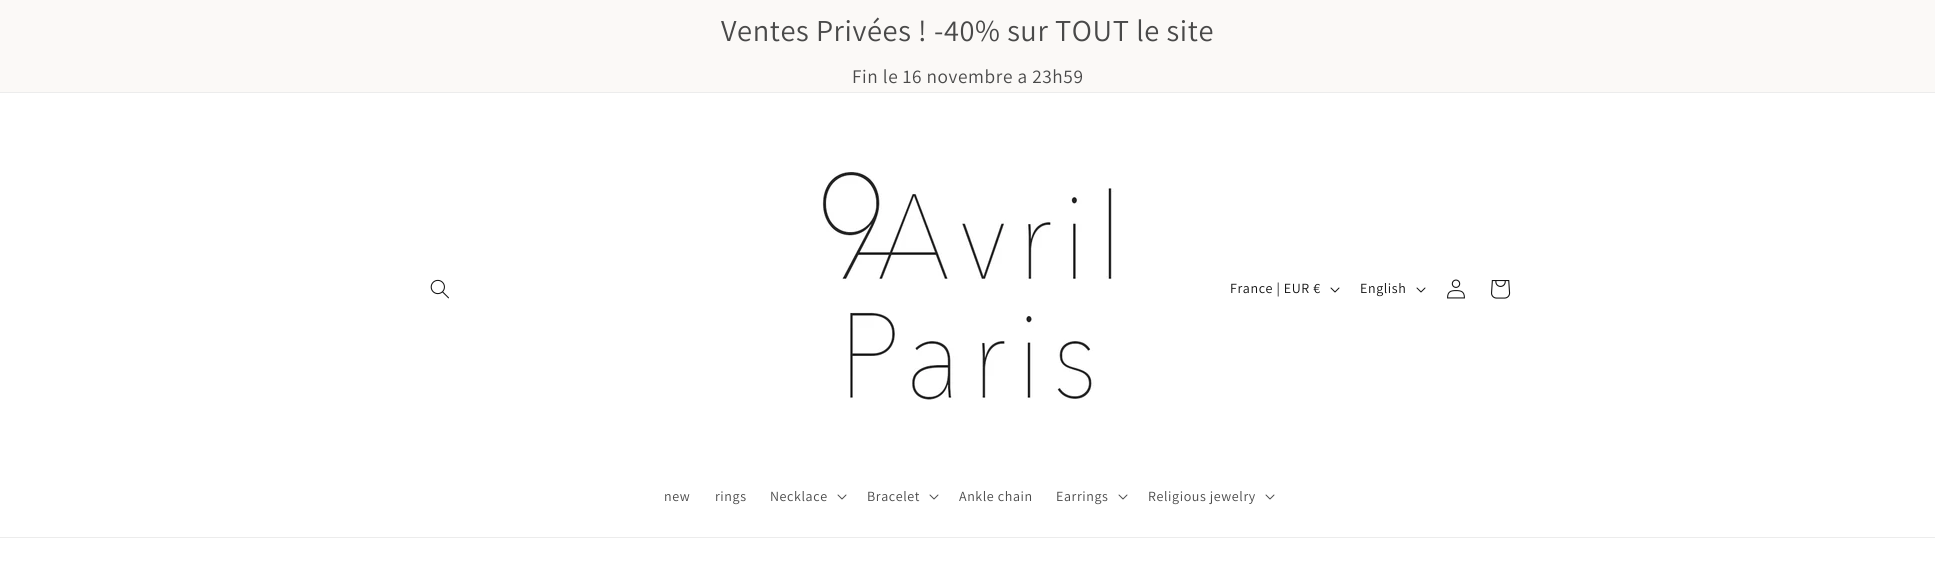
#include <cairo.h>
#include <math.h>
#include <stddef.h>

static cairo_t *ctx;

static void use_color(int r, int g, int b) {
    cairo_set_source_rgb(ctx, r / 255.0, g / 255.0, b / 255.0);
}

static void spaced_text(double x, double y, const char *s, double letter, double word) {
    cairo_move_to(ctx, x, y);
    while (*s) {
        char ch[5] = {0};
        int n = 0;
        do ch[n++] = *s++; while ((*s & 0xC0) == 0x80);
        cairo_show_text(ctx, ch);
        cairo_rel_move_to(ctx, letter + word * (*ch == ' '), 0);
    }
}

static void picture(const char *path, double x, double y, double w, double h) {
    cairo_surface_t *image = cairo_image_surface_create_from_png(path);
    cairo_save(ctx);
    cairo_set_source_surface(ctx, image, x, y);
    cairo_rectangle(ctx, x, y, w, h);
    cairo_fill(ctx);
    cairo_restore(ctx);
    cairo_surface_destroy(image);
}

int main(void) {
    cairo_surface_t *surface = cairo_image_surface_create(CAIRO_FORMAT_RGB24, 1935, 565);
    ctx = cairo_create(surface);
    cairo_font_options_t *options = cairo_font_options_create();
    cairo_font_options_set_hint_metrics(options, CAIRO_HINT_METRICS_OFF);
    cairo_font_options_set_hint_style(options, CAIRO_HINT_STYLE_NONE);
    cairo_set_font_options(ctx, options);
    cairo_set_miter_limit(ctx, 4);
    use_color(255, 255, 255);
    cairo_paint(ctx);
    use_color(251, 249, 247);
    cairo_rectangle(ctx, 0, 0, 1935, 92);
    cairo_fill(ctx);
    cairo_select_font_face(ctx, "Assistant", CAIRO_FONT_SLANT_NORMAL, CAIRO_FONT_WEIGHT_NORMAL);
    cairo_set_font_size(ctx, 30.4);
    use_color(73, 73, 73);
    spaced_text(721, 41, "Ventes Privées ! -40% sur TOUT le site", 0.6, 0);
    cairo_set_font_size(ctx, 19.25);
    spaced_text(852, 83, "Fin le 16 novembre a 23h59", 0.6, 0);
    use_color(236, 236, 236);
    cairo_rectangle(ctx, 0, 92, 1935, 1);
    cairo_fill(ctx);
    cairo_rectangle(ctx, 0, 537, 1935, 1);
    cairo_fill(ctx);
    picture("img1.png", 430, 279, 19, 20);
    picture("img2.png", 822, 172, 292, 228);
    cairo_set_font_size(ctx, 14);
    use_color(18, 18, 18);
    spaced_text(1230, 293, "France | EUR €", 0.6, 0);
    picture("img3.png", 1330, 287, 10, 6);
    spaced_text(1360, 293, "English", 0.6, 0);
    picture("img3.png", 1416, 287, 10, 6);
    picture("img4.png", 1447, 279, 18, 20);
    picture("img5.png", 1491, 280, 20, 19);
    use_color(73, 73, 73);
    spaced_text(664, 501, "new", 0.6, 0);
    spaced_text(715, 501, "rings", 0.6, 0);
    spaced_text(770, 501, "Necklace", 0.6, 0);
    picture("img6.png", 837, 494, 10, 6);
    spaced_text(867, 501, "Bracelet", 0.6, 0);
    picture("img6.png", 929, 494, 10, 6);
    spaced_text(959, 501, "Ankle chain", 0.6, 0);
    spaced_text(1056, 501, "Earrings", 0.6, 0);
    picture("img6.png", 1118, 494, 10, 6);
    spaced_text(1148, 501, "Religious jewelry", 0.6, 0);
    picture("img6.png", 1265, 494, 10, 6);
    cairo_surface_write_to_png(surface, "result.png");
    cairo_font_options_destroy(options);
    cairo_destroy(ctx);
    cairo_surface_destroy(surface);
    return 0;
}
